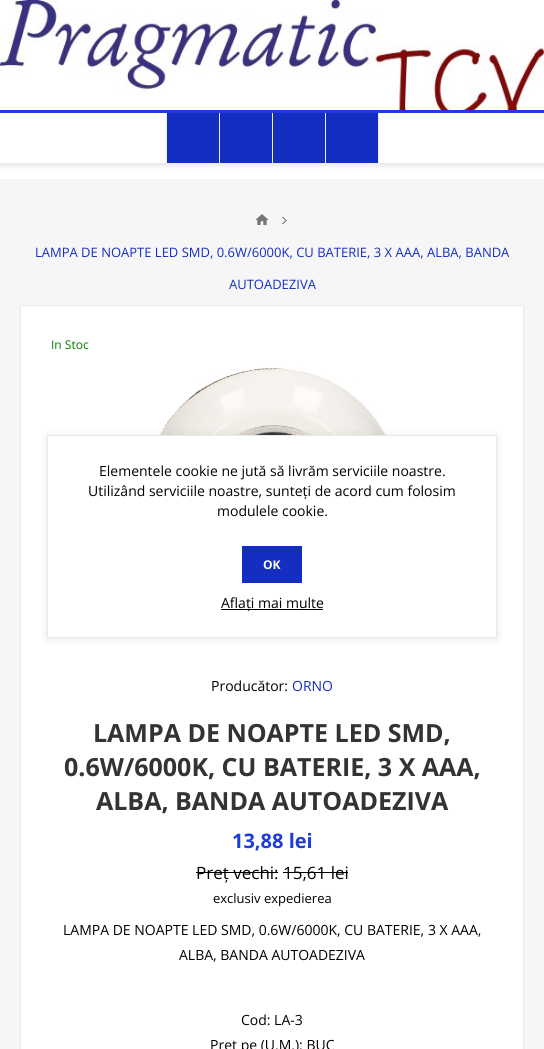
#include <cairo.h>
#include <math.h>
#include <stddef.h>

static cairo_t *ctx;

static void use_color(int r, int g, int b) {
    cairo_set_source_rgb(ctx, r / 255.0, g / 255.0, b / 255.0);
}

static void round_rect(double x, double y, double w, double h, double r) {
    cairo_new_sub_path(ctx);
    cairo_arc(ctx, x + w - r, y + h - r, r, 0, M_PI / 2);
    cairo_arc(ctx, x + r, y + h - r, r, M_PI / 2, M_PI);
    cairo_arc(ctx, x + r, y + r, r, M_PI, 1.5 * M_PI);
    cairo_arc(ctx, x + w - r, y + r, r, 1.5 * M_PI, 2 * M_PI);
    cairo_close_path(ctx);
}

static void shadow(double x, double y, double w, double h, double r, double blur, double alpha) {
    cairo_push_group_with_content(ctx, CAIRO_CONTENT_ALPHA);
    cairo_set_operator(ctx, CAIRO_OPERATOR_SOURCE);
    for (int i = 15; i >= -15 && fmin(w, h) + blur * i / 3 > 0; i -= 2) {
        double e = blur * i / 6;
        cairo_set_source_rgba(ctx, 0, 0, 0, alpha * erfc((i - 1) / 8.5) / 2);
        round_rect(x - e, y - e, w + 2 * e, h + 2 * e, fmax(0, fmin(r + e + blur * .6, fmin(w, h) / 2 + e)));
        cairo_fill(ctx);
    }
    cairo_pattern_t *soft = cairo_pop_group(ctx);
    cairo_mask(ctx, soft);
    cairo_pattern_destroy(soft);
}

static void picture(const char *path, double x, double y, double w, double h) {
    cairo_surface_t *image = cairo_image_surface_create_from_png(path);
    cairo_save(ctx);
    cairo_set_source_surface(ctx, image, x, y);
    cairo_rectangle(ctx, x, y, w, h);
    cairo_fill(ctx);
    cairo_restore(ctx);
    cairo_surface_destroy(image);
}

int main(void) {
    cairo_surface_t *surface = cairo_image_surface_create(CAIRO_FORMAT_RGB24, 544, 1049);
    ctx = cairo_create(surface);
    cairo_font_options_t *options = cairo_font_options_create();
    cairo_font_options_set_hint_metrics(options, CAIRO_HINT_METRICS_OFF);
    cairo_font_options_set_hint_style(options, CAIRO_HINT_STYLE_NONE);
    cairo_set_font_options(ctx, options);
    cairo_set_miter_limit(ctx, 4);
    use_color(255, 255, 255);
    cairo_paint(ctx);
    use_color(246, 246, 246);
    cairo_rectangle(ctx, 0, 179, 544, 870);
    cairo_fill(ctx);
    picture("img1.png", 0, 0, 544, 110);
    use_color(0, 0, 0);
    shadow(0, 113, 544, 53, 0, 2.5, 0.1);
    use_color(255, 255, 255);
    cairo_rectangle(ctx, 0, 113, 544, 50);
    cairo_fill(ctx);
    use_color(31, 59, 217);
    cairo_rectangle(ctx, 0, 110, 544, 3);
    cairo_fill(ctx);
    use_color(20, 46, 193);
    cairo_rectangle(ctx, 167, 113, 52, 50);
    cairo_fill(ctx);
    use_color(238, 238, 238);
    cairo_rectangle(ctx, 219, 113, 1, 50);
    cairo_fill(ctx);
    cairo_rectangle(ctx, 166, 113, 1, 50);
    cairo_fill(ctx);
    use_color(20, 46, 193);
    cairo_rectangle(ctx, 220, 113, 52, 50);
    cairo_fill(ctx);
    use_color(238, 238, 238);
    cairo_rectangle(ctx, 272, 113, 1, 50);
    cairo_fill(ctx);
    use_color(20, 46, 193);
    cairo_rectangle(ctx, 273, 113, 52, 50);
    cairo_fill(ctx);
    use_color(238, 238, 238);
    cairo_rectangle(ctx, 325, 113, 1, 50);
    cairo_fill(ctx);
    use_color(20, 46, 193);
    cairo_rectangle(ctx, 326, 113, 52, 50);
    cairo_fill(ctx);
    use_color(238, 238, 238);
    cairo_rectangle(ctx, 378, 113, 1, 50);
    cairo_fill(ctx);
    picture("img2.png", 255, 214, 14, 11);
    picture("img3.png", 282, 217, 5, 7);
    cairo_select_font_face(ctx, "Open Sans", CAIRO_FONT_SLANT_NORMAL, CAIRO_FONT_WEIGHT_NORMAL);
    cairo_set_font_size(ctx, 13);
    use_color(20, 46, 193);
    cairo_move_to(ctx, 35, 257);
    cairo_show_text(ctx, "LAMPA DE NOAPTE LED SMD, 0.6W/6000K, CU BATERIE, 3 X AAA, ALBA, BANDA");
    cairo_move_to(ctx, 229, 289);
    cairo_show_text(ctx, "AUTOADEZIVA");
    use_color(255, 255, 255);
    cairo_rectangle(ctx, 20.5, 305.5, 503, 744);
    cairo_fill_preserve(ctx);
    use_color(233, 233, 233);
    cairo_set_line_width(ctx, 1);
    cairo_stroke(ctx);
    cairo_set_font_size(ctx, 12);
    use_color(0, 128, 0);
    cairo_move_to(ctx, 51, 349);
    cairo_show_text(ctx, "In Stoc");
    picture("img4.png", 144, 367, 256, 68);
    cairo_set_font_size(ctx, 14);
    use_color(0, 0, 0);
    cairo_move_to(ctx, 211, 691);
    cairo_show_text(ctx, "Producător:");
    use_color(20, 46, 193);
    cairo_move_to(ctx, 292, 691);
    cairo_show_text(ctx, "ORNO");
    cairo_select_font_face(ctx, "Open Sans", CAIRO_FONT_SLANT_NORMAL, CAIRO_FONT_WEIGHT_BOLD);
    cairo_set_font_size(ctx, 25);
    use_color(51, 51, 51);
    cairo_move_to(ctx, 93, 742);
    cairo_show_text(ctx, "LAMPA DE NOAPTE LED SMD,");
    cairo_move_to(ctx, 64, 776);
    cairo_show_text(ctx, "0.6W/6000K, CU BATERIE, 3 X AAA,");
    cairo_move_to(ctx, 96, 810);
    cairo_show_text(ctx, "ALBA, BANDA AUTOADEZIVA");
    cairo_set_font_size(ctx, 20);
    use_color(31, 59, 217);
    cairo_move_to(ctx, 232, 848);
    cairo_show_text(ctx, "13,88 lei");
    cairo_select_font_face(ctx, "Open Sans", CAIRO_FONT_SLANT_NORMAL, CAIRO_FONT_WEIGHT_NORMAL);
    cairo_set_font_size(ctx, 17);
    use_color(0, 0, 0);
    cairo_move_to(ctx, 196, 879);
    cairo_show_text(ctx, "Preț vechi: 15,61 lei");
    cairo_rectangle(ctx, 196, 872, 82, 1);
    cairo_fill(ctx);
    cairo_rectangle(ctx, 283, 872, 65, 1);
    cairo_fill(ctx);
    cairo_set_font_size(ctx, 13);
    cairo_move_to(ctx, 213, 903);
    cairo_show_text(ctx, "exclusiv expedierea");
    cairo_set_font_size(ctx, 14);
    cairo_move_to(ctx, 63, 935);
    cairo_show_text(ctx, "LAMPA DE NOAPTE LED SMD, 0.6W/6000K, CU BATERIE, 3 X AAA,");
    cairo_move_to(ctx, 179, 960);
    cairo_show_text(ctx, "ALBA, BANDA AUTOADEZIVA");
    cairo_move_to(ctx, 241, 1025);
    cairo_show_text(ctx, "Cod: LA-3");
    cairo_move_to(ctx, 210, 1050);
    cairo_show_text(ctx, "Pret pe (U.M.): BUC");
    use_color(0, 0, 0);
    shadow(47, 436, 450, 203, 0, 4, 0.1);
    use_color(255, 255, 255);
    cairo_rectangle(ctx, 47.5, 435.5, 449, 202);
    cairo_fill_preserve(ctx);
    use_color(233, 233, 233);
    cairo_stroke(ctx);
    use_color(0, 0, 0);
    cairo_move_to(ctx, 99, 476);
    cairo_show_text(ctx, "Elementele cookie ne jută să livrăm serviciile noastre.");
    cairo_move_to(ctx, 88, 496);
    cairo_show_text(ctx, "Utilizând serviciile noastre, sunteți de acord cum folosim");
    cairo_move_to(ctx, 217, 516);
    cairo_show_text(ctx, "modulele cookie.");
    use_color(20, 46, 193);
    cairo_rectangle(ctx, 242, 546, 60, 37);
    cairo_fill(ctx);
    cairo_select_font_face(ctx, "Open Sans", CAIRO_FONT_SLANT_NORMAL, CAIRO_FONT_WEIGHT_BOLD);
    cairo_set_font_size(ctx, 12);
    use_color(255, 255, 255);
    cairo_move_to(ctx, 263, 569);
    cairo_show_text(ctx, "OK");
    use_color(0, 0, 0);
    cairo_rectangle(ctx, 221, 609, 102, 1);
    cairo_fill(ctx);
    cairo_select_font_face(ctx, "Open Sans", CAIRO_FONT_SLANT_NORMAL, CAIRO_FONT_WEIGHT_NORMAL);
    cairo_set_font_size(ctx, 14);
    cairo_move_to(ctx, 221, 608);
    cairo_show_text(ctx, "Aflați mai multe");
    cairo_surface_write_to_png(surface, "result.png");
    cairo_font_options_destroy(options);
    cairo_destroy(ctx);
    cairo_surface_destroy(surface);
    return 0;
}
